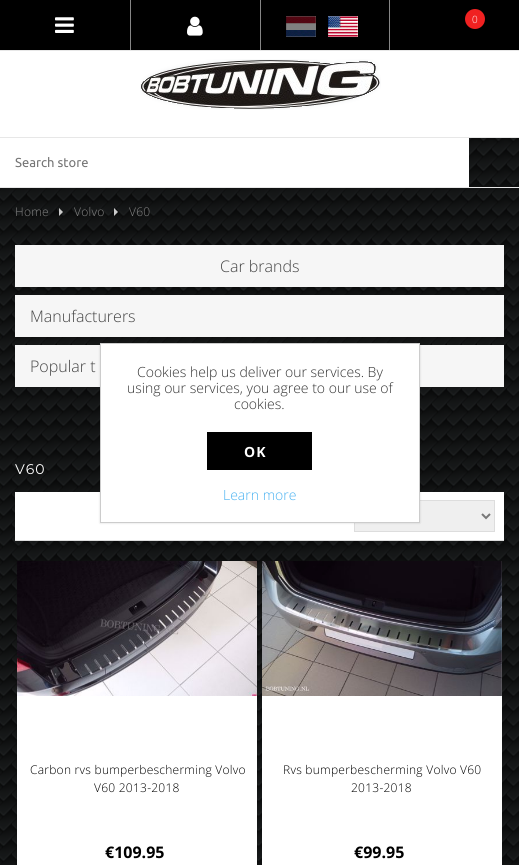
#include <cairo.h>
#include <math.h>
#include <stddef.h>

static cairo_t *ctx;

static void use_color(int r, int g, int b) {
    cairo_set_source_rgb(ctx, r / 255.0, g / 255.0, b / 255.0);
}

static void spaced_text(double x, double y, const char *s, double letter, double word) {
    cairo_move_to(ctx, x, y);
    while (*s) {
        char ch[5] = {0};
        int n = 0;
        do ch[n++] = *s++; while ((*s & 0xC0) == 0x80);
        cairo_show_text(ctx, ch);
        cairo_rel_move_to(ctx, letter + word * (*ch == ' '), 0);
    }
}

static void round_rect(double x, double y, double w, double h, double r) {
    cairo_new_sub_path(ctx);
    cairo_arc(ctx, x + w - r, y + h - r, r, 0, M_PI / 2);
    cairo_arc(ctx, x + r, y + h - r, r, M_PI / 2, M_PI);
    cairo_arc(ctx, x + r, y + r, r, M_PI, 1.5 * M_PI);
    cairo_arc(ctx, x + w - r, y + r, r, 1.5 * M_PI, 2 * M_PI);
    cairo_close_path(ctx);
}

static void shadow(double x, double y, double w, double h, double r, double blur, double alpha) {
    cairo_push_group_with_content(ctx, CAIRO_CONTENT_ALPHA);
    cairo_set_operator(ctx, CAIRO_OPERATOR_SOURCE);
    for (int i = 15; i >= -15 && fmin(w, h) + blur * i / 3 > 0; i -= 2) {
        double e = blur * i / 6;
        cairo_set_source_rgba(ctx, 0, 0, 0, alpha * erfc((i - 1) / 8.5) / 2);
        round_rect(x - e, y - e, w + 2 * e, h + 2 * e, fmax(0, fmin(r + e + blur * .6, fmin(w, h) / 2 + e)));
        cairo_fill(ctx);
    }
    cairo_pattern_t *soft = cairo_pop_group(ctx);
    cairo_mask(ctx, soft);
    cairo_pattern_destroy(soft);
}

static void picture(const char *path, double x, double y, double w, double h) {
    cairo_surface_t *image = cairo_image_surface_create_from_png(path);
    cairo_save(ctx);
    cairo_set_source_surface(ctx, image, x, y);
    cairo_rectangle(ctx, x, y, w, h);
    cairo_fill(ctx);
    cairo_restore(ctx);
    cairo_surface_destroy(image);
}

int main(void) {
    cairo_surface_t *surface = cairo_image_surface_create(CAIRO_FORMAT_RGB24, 519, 865);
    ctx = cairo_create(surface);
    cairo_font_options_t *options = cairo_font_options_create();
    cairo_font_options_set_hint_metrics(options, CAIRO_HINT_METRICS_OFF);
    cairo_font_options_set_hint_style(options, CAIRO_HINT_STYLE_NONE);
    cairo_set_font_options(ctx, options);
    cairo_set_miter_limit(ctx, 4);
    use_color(255, 255, 255);
    cairo_paint(ctx);
    picture("img1.png", 0, 138, 519, 727);
    use_color(0, 0, 0);
    cairo_rectangle(ctx, 0, 0, 130, 50);
    cairo_fill(ctx);
    picture("img2.png", 55, 17, 19, 16);
    cairo_rectangle(ctx, 131, 0, 129, 50);
    cairo_fill(ctx);
    use_color(134, 134, 134);
    cairo_rectangle(ctx, 130, 0, 1, 50);
    cairo_fill(ctx);
    picture("img3.png", 187, 16, 16, 20);
    use_color(0, 0, 0);
    cairo_rectangle(ctx, 261, 0, 128, 50);
    cairo_fill(ctx);
    use_color(134, 134, 134);
    cairo_rectangle(ctx, 260, 0, 1, 50);
    cairo_fill(ctx);
    picture("img4.png", 286, 16, 30, 21);
    picture("img5.png", 328, 16, 30, 21);
    use_color(0, 0, 0);
    cairo_rectangle(ctx, 390, 0, 129, 50);
    cairo_fill(ctx);
    use_color(134, 134, 134);
    cairo_rectangle(ctx, 389, 0, 1, 50);
    cairo_fill(ctx);
    use_color(240, 33, 33);
    cairo_arc(ctx, 475, 19, 10, 0, 2 * M_PI);
    cairo_fill(ctx);
    cairo_select_font_face(ctx, "Open Sans Light", CAIRO_FONT_SLANT_NORMAL, CAIRO_FONT_WEIGHT_NORMAL);
    cairo_set_font_size(ctx, 10);
    use_color(255, 255, 255);
    cairo_move_to(ctx, 472, 23);
    cairo_show_text(ctx, "0");
    use_color(231, 231, 231);
    cairo_rectangle(ctx, 0, 50, 519, 1);
    cairo_fill(ctx);
    picture("img6.png", 140, 59, 241, 51);
    cairo_rectangle(ctx, 0, 137, 519, 1);
    cairo_fill(ctx);
    cairo_rectangle(ctx, 0, 187, 519, 1);
    cairo_fill(ctx);
    use_color(255, 255, 255);
    cairo_rectangle(ctx, 0, 138, 469, 49);
    cairo_fill(ctx);
    cairo_select_font_face(ctx, "Ubuntu", CAIRO_FONT_SLANT_NORMAL, CAIRO_FONT_WEIGHT_NORMAL);
    cairo_set_font_size(ctx, 13);
    use_color(117, 117, 117);
    cairo_move_to(ctx, 15, 167);
    cairo_show_text(ctx, "Search store");
    cairo_select_font_face(ctx, "Open Sans Light", CAIRO_FONT_SLANT_NORMAL, CAIRO_FONT_WEIGHT_NORMAL);
    cairo_set_font_size(ctx, 12);
    use_color(132, 132, 132);
    spaced_text(15, 216, "Home", 0.25, 0);
    use_color(203, 203, 203);
    cairo_new_path(ctx);
    cairo_move_to(ctx, 59, 216);
    cairo_line_to(ctx, 59, 208);
    cairo_line_to(ctx, 63, 212);
    cairo_close_path(ctx);
    cairo_fill(ctx);
    use_color(132, 132, 132);
    spaced_text(74, 216, "Volvo", 0.25, 0);
    use_color(203, 203, 203);
    cairo_new_path(ctx);
    cairo_move_to(ctx, 114, 216);
    cairo_line_to(ctx, 114, 208);
    cairo_line_to(ctx, 118, 212);
    cairo_close_path(ctx);
    cairo_fill(ctx);
    use_color(132, 132, 132);
    spaced_text(129, 216, "V60", 0.25, 0);
    use_color(246, 246, 246);
    cairo_rectangle(ctx, 15, 245, 489, 42);
    cairo_fill(ctx);
    cairo_set_font_size(ctx, 16);
    use_color(68, 68, 68);
    cairo_move_to(ctx, 220, 272);
    cairo_show_text(ctx, "Car brands");
    use_color(246, 246, 246);
    cairo_rectangle(ctx, 15, 295, 489, 42);
    cairo_fill(ctx);
    use_color(68, 68, 68);
    cairo_move_to(ctx, 30, 322);
    cairo_show_text(ctx, "Manufacturers");
    use_color(246, 246, 246);
    cairo_rectangle(ctx, 15, 345, 489, 42);
    cairo_fill(ctx);
    use_color(68, 68, 68);
    cairo_move_to(ctx, 30, 372);
    cairo_show_text(ctx, "Popular t");
    cairo_select_font_face(ctx, "Montserrat", CAIRO_FONT_SLANT_NORMAL, CAIRO_FONT_WEIGHT_NORMAL);
    cairo_set_font_size(ctx, 14);
    use_color(255, 255, 255);
    spaced_text(15, 474, "V60", 1, 0);
    cairo_rectangle(ctx, 15, 492, 489, 48);
    cairo_fill(ctx);
    use_color(239, 239, 239);
    cairo_rectangle(ctx, 354.5, 500.5, 140, 31);
    cairo_fill_preserve(ctx);
    use_color(221, 221, 221);
    cairo_set_line_width(ctx, 1);
    cairo_stroke(ctx);
    cairo_new_path(ctx);
    cairo_move_to(ctx, 482, 514);
    cairo_line_to(ctx, 486, 518);
    cairo_line_to(ctx, 490, 514);
    use_color(119, 119, 119);
    cairo_set_line_width(ctx, 2);
    cairo_stroke(ctx);
    use_color(221, 221, 221);
    cairo_rectangle(ctx, 15, 540, 489, 1);
    cairo_fill(ctx);
    use_color(255, 255, 255);
    cairo_rectangle(ctx, 17, 561, 240, 304);
    cairo_fill(ctx);
    picture("img7.png", 17, 561, 240, 135);
    cairo_select_font_face(ctx, "Open Sans Light", CAIRO_FONT_SLANT_NORMAL, CAIRO_FONT_WEIGHT_NORMAL);
    cairo_set_font_size(ctx, 12);
    use_color(0, 0, 0);
    spaced_text(30, 774, "Carbon rvs bumperbescherming Volvo", 0.25, 0);
    spaced_text(94, 792, "V60 2013-2018", 0.25, 0);
    cairo_select_font_face(ctx, "Open Sans", CAIRO_FONT_SLANT_NORMAL, CAIRO_FONT_WEIGHT_BOLD);
    cairo_set_font_size(ctx, 16);
    cairo_move_to(ctx, 105, 858);
    cairo_show_text(ctx, "€109.95");
    use_color(255, 255, 255);
    cairo_rectangle(ctx, 262, 561, 240, 304);
    cairo_fill(ctx);
    picture("img8.png", 262, 561, 240, 135);
    cairo_select_font_face(ctx, "Open Sans Light", CAIRO_FONT_SLANT_NORMAL, CAIRO_FONT_WEIGHT_NORMAL);
    cairo_set_font_size(ctx, 12);
    use_color(0, 0, 0);
    spaced_text(283, 774, "Rvs bumperbescherming Volvo V60", 0.25, 0);
    spaced_text(351, 792, "2013-2018", 0.25, 0);
    cairo_select_font_face(ctx, "Open Sans", CAIRO_FONT_SLANT_NORMAL, CAIRO_FONT_WEIGHT_BOLD);
    cairo_set_font_size(ctx, 16);
    cairo_move_to(ctx, 354, 858);
    cairo_show_text(ctx, "€99.95");
    use_color(0, 0, 0);
    shadow(100, 343, 320, 180, 0, 1, 0.15);
    use_color(255, 255, 255);
    cairo_rectangle(ctx, 100.5, 343.5, 319, 179);
    cairo_fill_preserve(ctx);
    use_color(204, 204, 204);
    cairo_set_line_width(ctx, 1);
    cairo_stroke(ctx);
    cairo_select_font_face(ctx, "Open Sans Light", CAIRO_FONT_SLANT_NORMAL, CAIRO_FONT_WEIGHT_NORMAL);
    cairo_set_font_size(ctx, 14);
    use_color(51, 51, 51);
    cairo_move_to(ctx, 137, 377);
    cairo_show_text(ctx, "Cookies help us deliver our services. By");
    cairo_move_to(ctx, 127, 393);
    cairo_show_text(ctx, "using our services, you agree to our use of");
    cairo_move_to(ctx, 234, 409);
    cairo_show_text(ctx, "cookies.");
    use_color(0, 0, 0);
    cairo_rectangle(ctx, 207, 432, 105, 38);
    cairo_fill(ctx);
    cairo_select_font_face(ctx, "Open Sans", CAIRO_FONT_SLANT_NORMAL, CAIRO_FONT_WEIGHT_BOLD);
    use_color(255, 255, 255);
    spaced_text(244, 457, "OK", 1, 0);
    cairo_select_font_face(ctx, "Open Sans Light", CAIRO_FONT_SLANT_NORMAL, CAIRO_FONT_WEIGHT_NORMAL);
    use_color(74, 178, 241);
    cairo_move_to(ctx, 223, 500);
    cairo_show_text(ctx, "Learn more");
    cairo_surface_write_to_png(surface, "result.png");
    cairo_font_options_destroy(options);
    cairo_destroy(ctx);
    cairo_surface_destroy(surface);
    return 0;
}
